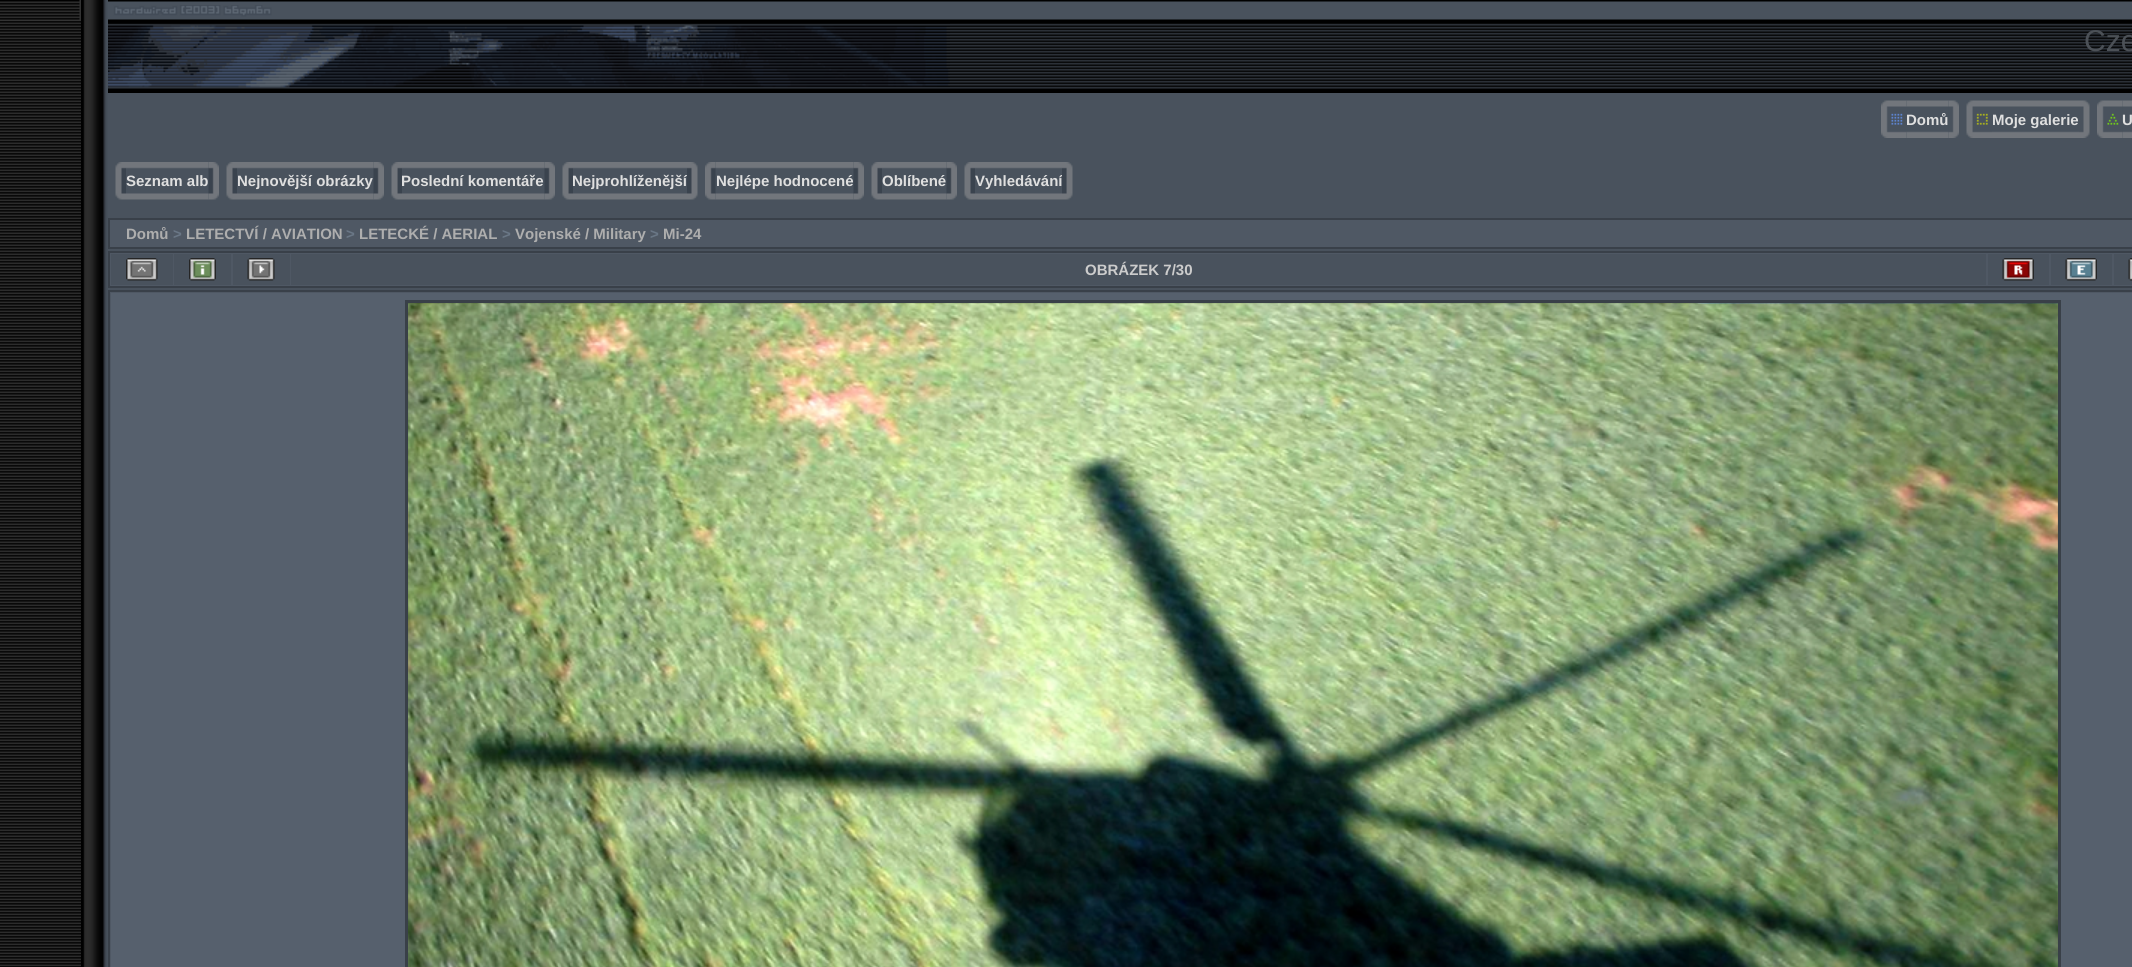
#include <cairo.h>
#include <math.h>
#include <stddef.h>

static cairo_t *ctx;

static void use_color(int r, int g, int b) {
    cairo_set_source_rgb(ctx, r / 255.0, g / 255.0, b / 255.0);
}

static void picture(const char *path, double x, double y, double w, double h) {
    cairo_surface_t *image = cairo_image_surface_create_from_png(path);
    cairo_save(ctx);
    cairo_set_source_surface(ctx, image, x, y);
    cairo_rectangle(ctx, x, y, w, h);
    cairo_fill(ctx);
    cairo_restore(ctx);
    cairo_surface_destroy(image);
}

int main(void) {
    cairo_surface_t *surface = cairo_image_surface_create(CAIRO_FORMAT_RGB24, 2132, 967);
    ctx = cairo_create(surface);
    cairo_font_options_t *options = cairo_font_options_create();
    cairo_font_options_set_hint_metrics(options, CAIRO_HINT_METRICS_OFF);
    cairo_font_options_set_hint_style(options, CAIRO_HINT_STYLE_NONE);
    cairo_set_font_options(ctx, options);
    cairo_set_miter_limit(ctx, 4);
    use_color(255, 255, 255);
    cairo_paint(ctx);
    picture("img1.png", 0, 21, 81, 946);
    picture("img2.png", 0, 0, 81, 21);
    picture("img3.png", 81, 0, 27, 93);
    picture("img4.png", 108, 0, 2024, 93);
    picture("img5.png", 108, 5, 842, 83);
    cairo_select_font_face(ctx, "Liberation Sans", CAIRO_FONT_SLANT_NORMAL, CAIRO_FONT_WEIGHT_NORMAL);
    cairo_set_font_size(ctx, 30);
    use_color(76, 81, 87);
    cairo_move_to(ctx, 2084, 51);
    cairo_show_text(ctx, "Cze");
    picture("img6.png", 81, 93, 27, 874);
    use_color(73, 82, 93);
    cairo_rectangle(ctx, 108, 93, 2024, 197);
    cairo_fill(ctx);
    picture("img8.png", 1906, 100, 43, 38);
    picture("img7.png", 1881, 100, 26, 38);
    cairo_select_font_face(ctx, "Liberation Sans", CAIRO_FONT_SLANT_NORMAL, CAIRO_FONT_WEIGHT_BOLD);
    cairo_set_font_size(ctx, 15);
    use_color(223, 223, 223);
    cairo_move_to(ctx, 1906, 125);
    cairo_show_text(ctx, "Domů");
    picture("img9.png", 1948, 100, 11, 38);
    picture("img10.png", 1966, 100, 26, 38);
    picture("img11.png", 1992, 100, 87, 38);
    cairo_move_to(ctx, 1992, 125);
    cairo_show_text(ctx, "Moje galerie");
    picture("img12.png", 2079, 100, 11, 38);
    picture("img14.png", 2122, 100, 10, 38);
    picture("img13.png", 2097, 100, 26, 38);
    cairo_move_to(ctx, 2122, 125);
    cairo_show_text(ctx, "U");
    picture("img15.png", 115, 162, 11, 38);
    picture("img16.png", 126, 162, 83, 38);
    cairo_move_to(ctx, 126, 186);
    cairo_show_text(ctx, "Seznam alb");
    picture("img17.png", 208, 162, 11, 38);
    picture("img15.png", 226, 162, 11, 38);
    picture("img18.png", 237, 162, 137, 38);
    cairo_move_to(ctx, 237, 186);
    cairo_show_text(ctx, "Nejnovější obrázky");
    picture("img19.png", 373, 162, 11, 38);
    picture("img20.png", 391, 162, 11, 38);
    picture("img21.png", 402, 162, 143, 38);
    cairo_move_to(ctx, 401, 186);
    cairo_show_text(ctx, "Poslední komentáře");
    picture("img19.png", 544, 162, 11, 38);
    picture("img20.png", 562, 162, 11, 38);
    picture("img22.png", 573, 162, 114, 38);
    cairo_move_to(ctx, 572, 186);
    cairo_show_text(ctx, "Nejprohlíženější");
    picture("img23.png", 687, 162, 11, 38);
    picture("img25.png", 715, 162, 139, 38);
    picture("img24.png", 705, 162, 11, 38);
    cairo_move_to(ctx, 716, 186);
    cairo_show_text(ctx, "Nejlépe hodnocené");
    picture("img26.png", 853, 162, 11, 38);
    picture("img15.png", 871, 162, 11, 38);
    picture("img27.png", 882, 162, 65, 38);
    cairo_move_to(ctx, 882, 186);
    cairo_show_text(ctx, "Oblíbené");
    picture("img17.png", 946, 162, 11, 38);
    picture("img15.png", 964, 162, 11, 38);
    picture("img28.png", 975, 162, 87, 38);
    cairo_move_to(ctx, 975, 186);
    cairo_show_text(ctx, "Vyhledávání");
    picture("img29.png", 1062, 162, 11, 38);
    use_color(79, 88, 100);
    cairo_rectangle(ctx, 109, 219, 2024, 29);
    cairo_fill_preserve(ctx);
    use_color(57, 64, 73);
    cairo_stroke(ctx);
    use_color(174, 174, 174);
    cairo_move_to(ctx, 126, 239);
    cairo_show_text(ctx, "Domů");
    use_color(106, 119, 134);
    cairo_move_to(ctx, 173, 239);
    cairo_show_text(ctx, ">");
    use_color(174, 174, 174);
    cairo_move_to(ctx, 186, 239);
    cairo_show_text(ctx, "LETECTVÍ / AVIATION");
    use_color(106, 119, 134);
    cairo_move_to(ctx, 346, 239);
    cairo_show_text(ctx, ">");
    use_color(174, 174, 174);
    cairo_move_to(ctx, 359, 239);
    cairo_show_text(ctx, "LETECKÉ / AERIAL");
    use_color(106, 119, 134);
    cairo_move_to(ctx, 502, 239);
    cairo_show_text(ctx, ">");
    use_color(174, 174, 174);
    cairo_move_to(ctx, 515, 239);
    cairo_show_text(ctx, "Vojenské / Military");
    use_color(106, 119, 134);
    cairo_move_to(ctx, 650, 239);
    cairo_show_text(ctx, ">");
    use_color(174, 174, 174);
    cairo_move_to(ctx, 663, 239);
    cairo_show_text(ctx, "Mi-24");
    use_color(79, 88, 100);
    cairo_rectangle(ctx, 109, 252, 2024, 35);
    cairo_fill_preserve(ctx);
    use_color(57, 64, 73);
    cairo_stroke(ctx);
    use_color(73, 82, 93);
    cairo_rectangle(ctx, 111, 254, 62, 31);
    cairo_fill(ctx);
    picture("img30.png", 126, 258, 32, 23);
    cairo_rectangle(ctx, 174, 254, 57, 31);
    cairo_fill(ctx);
    picture("img31.png", 189, 258, 27, 23);
    cairo_rectangle(ctx, 233, 254, 57, 31);
    cairo_fill(ctx);
    picture("img32.png", 247, 258, 28, 23);
    cairo_rectangle(ctx, 291, 254, 1695, 31);
    cairo_fill(ctx);
    use_color(204, 204, 204);
    cairo_move_to(ctx, 1085, 275);
    cairo_show_text(ctx, "OBRÁZEK 7/30");
    use_color(73, 82, 93);
    cairo_rectangle(ctx, 1988, 254, 61, 31);
    cairo_fill(ctx);
    picture("img33.png", 2002, 258, 32, 23);
    cairo_rectangle(ctx, 2051, 254, 61, 31);
    cairo_fill(ctx);
    picture("img34.png", 2065, 258, 32, 23);
    cairo_rectangle(ctx, 2114, 254, 18, 31);
    cairo_fill(ctx);
    picture("img35.png", 2128, 258, 4, 23);
    use_color(79, 88, 100);
    cairo_rectangle(ctx, 109, 291, 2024, 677);
    cairo_fill_preserve(ctx);
    use_color(57, 64, 73);
    cairo_stroke(ctx);
    use_color(86, 96, 109);
    cairo_rectangle(ctx, 111, 293, 2021, 674);
    cairo_fill(ctx);
    picture("img36.png", 408, 303, 1650, 664);
    cairo_rectangle(ctx, 406.5, 301.5, 1653, 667);
    use_color(57, 64, 72);
    cairo_set_line_width(ctx, 3);
    cairo_stroke(ctx);
    cairo_surface_write_to_png(surface, "result.png");
    cairo_font_options_destroy(options);
    cairo_destroy(ctx);
    cairo_surface_destroy(surface);
    return 0;
}
